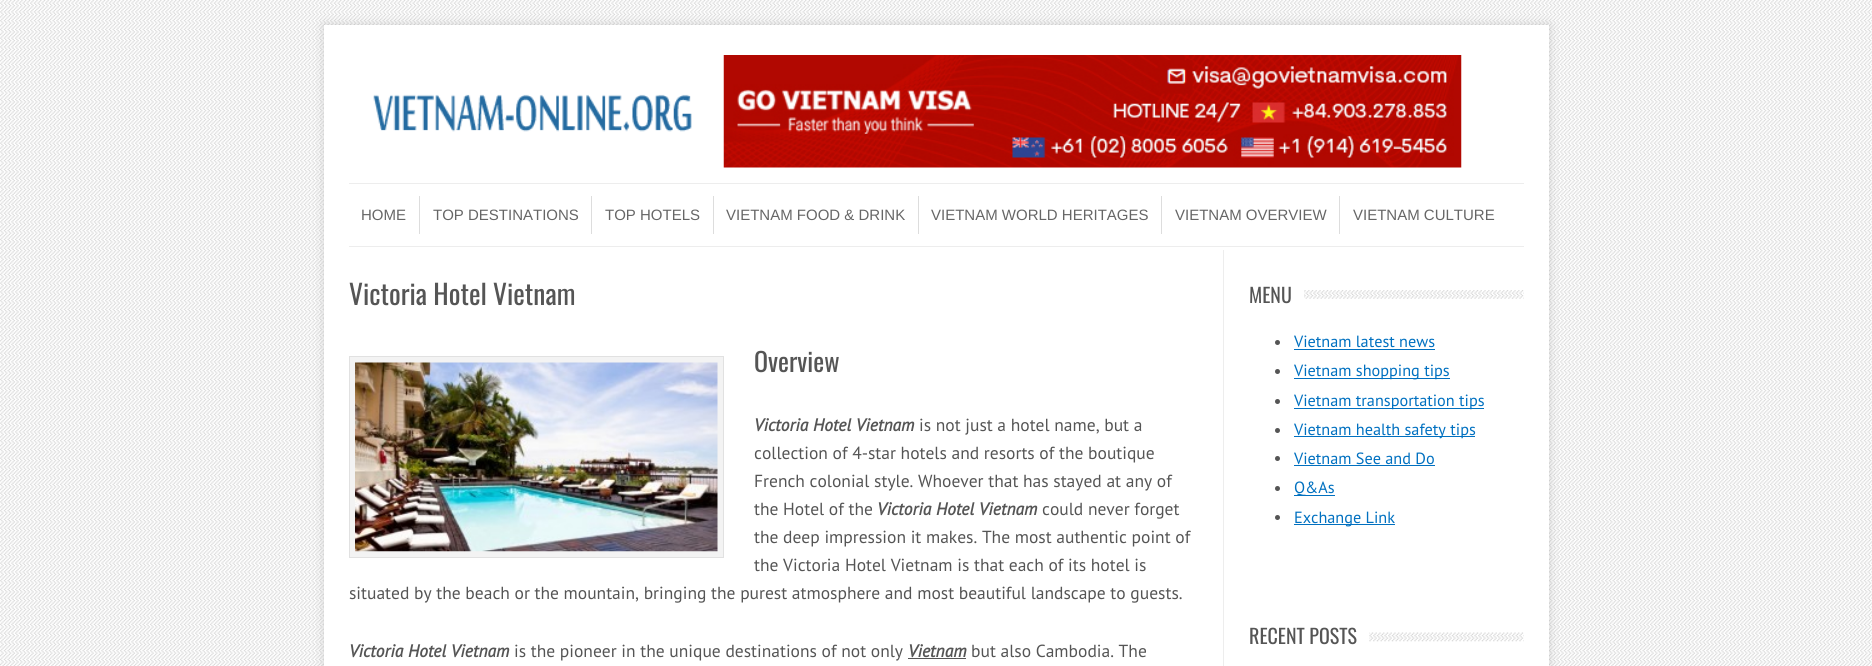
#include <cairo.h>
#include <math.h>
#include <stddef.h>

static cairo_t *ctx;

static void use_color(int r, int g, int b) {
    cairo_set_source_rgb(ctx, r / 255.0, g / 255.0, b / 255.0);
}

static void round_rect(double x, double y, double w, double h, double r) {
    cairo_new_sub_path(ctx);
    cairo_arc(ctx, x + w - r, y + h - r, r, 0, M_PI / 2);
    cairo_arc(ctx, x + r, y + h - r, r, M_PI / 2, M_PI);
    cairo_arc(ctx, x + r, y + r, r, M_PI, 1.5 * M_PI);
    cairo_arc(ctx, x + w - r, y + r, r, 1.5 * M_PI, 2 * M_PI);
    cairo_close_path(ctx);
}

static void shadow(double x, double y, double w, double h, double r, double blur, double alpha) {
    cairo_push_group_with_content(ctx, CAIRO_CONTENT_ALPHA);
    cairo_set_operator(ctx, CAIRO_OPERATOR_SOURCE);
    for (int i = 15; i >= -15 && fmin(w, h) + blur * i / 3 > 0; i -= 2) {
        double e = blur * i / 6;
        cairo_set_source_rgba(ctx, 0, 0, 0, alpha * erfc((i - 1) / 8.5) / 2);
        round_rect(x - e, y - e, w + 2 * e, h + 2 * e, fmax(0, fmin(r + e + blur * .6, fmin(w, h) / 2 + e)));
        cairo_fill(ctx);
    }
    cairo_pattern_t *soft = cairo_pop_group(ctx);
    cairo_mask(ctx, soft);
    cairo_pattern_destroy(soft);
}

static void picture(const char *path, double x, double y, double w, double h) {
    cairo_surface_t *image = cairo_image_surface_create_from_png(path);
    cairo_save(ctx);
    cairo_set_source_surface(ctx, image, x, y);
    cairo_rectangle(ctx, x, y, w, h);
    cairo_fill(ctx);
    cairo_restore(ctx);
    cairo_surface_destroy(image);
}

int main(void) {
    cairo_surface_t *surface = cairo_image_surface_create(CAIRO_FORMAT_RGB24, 1872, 666);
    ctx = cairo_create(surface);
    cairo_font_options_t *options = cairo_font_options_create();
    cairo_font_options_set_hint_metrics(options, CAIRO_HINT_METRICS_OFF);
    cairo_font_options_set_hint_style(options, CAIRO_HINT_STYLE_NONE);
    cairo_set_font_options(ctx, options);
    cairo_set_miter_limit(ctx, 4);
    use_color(255, 255, 255);
    cairo_paint(ctx);
    picture("img1.png", 0, 0, 1872, 666);
    use_color(150, 150, 150);
    shadow(324, 25, 1225, 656, 0, 5, 0.4);
    use_color(255, 255, 255);
    cairo_rectangle(ctx, 324, 25, 1225, 641);
    cairo_fill(ctx);
    picture("img2.png", 373, 94, 319, 38);
    picture("img3.png", 723, 55, 739, 113);
    use_color(237, 237, 237);
    cairo_rectangle(ctx, 349, 183, 1175, 1);
    cairo_fill(ctx);
    cairo_rectangle(ctx, 349, 246, 1175, 1);
    cairo_fill(ctx);
    cairo_select_font_face(ctx, "Liberation Sans", CAIRO_FONT_SLANT_NORMAL, CAIRO_FONT_WEIGHT_NORMAL);
    cairo_set_font_size(ctx, 15);
    use_color(102, 102, 102);
    cairo_move_to(ctx, 361, 220);
    cairo_show_text(ctx, "HOME");
    use_color(221, 221, 221);
    cairo_rectangle(ctx, 419, 196, 1, 38);
    cairo_fill(ctx);
    use_color(102, 102, 102);
    cairo_move_to(ctx, 433, 220);
    cairo_show_text(ctx, "TOP DESTINATIONS");
    use_color(221, 221, 221);
    cairo_rectangle(ctx, 591, 196, 1, 38);
    cairo_fill(ctx);
    use_color(102, 102, 102);
    cairo_move_to(ctx, 605, 220);
    cairo_show_text(ctx, "TOP HOTELS");
    use_color(221, 221, 221);
    cairo_rectangle(ctx, 713, 196, 1, 38);
    cairo_fill(ctx);
    use_color(102, 102, 102);
    cairo_move_to(ctx, 726, 220);
    cairo_show_text(ctx, "VIETNAM FOOD & DRINK");
    use_color(221, 221, 221);
    cairo_rectangle(ctx, 918, 196, 1, 38);
    cairo_fill(ctx);
    use_color(102, 102, 102);
    cairo_move_to(ctx, 931, 220);
    cairo_show_text(ctx, "VIETNAM WORLD HERITAGES");
    use_color(221, 221, 221);
    cairo_rectangle(ctx, 1161, 196, 1, 38);
    cairo_fill(ctx);
    use_color(102, 102, 102);
    cairo_move_to(ctx, 1175, 220);
    cairo_show_text(ctx, "VIETNAM OVERVIEW");
    use_color(221, 221, 221);
    cairo_rectangle(ctx, 1339, 196, 1, 38);
    cairo_fill(ctx);
    use_color(102, 102, 102);
    cairo_move_to(ctx, 1353, 220);
    cairo_show_text(ctx, "VIETNAM CULTURE");
    use_color(237, 237, 237);
    cairo_rectangle(ctx, 1223, 250, 1, 416);
    cairo_fill(ctx);
    cairo_select_font_face(ctx, "Oswald", CAIRO_FONT_SLANT_NORMAL, CAIRO_FONT_WEIGHT_NORMAL);
    cairo_set_font_size(ctx, 27.5);
    use_color(85, 85, 85);
    cairo_move_to(ctx, 349, 305);
    cairo_show_text(ctx, "Victoria Hotel Vietnam");
    use_color(243, 243, 243);
    cairo_rectangle(ctx, 349.5, 356.5, 374, 201);
    cairo_fill_preserve(ctx);
    use_color(225, 225, 225);
    cairo_set_line_width(ctx, 1);
    cairo_stroke(ctx);
    picture("img4.png", 355, 362, 363, 190);
    cairo_set_font_size(ctx, 26);
    use_color(85, 85, 85);
    cairo_move_to(ctx, 754, 372);
    cairo_show_text(ctx, "Overview");
    cairo_select_font_face(ctx, "PT Sans", CAIRO_FONT_SLANT_ITALIC, CAIRO_FONT_WEIGHT_BOLD);
    cairo_set_font_size(ctx, 17.5);
    cairo_move_to(ctx, 754, 431);
    cairo_show_text(ctx, "Victoria Hotel Vietnam");
    cairo_select_font_face(ctx, "PT Sans", CAIRO_FONT_SLANT_NORMAL, CAIRO_FONT_WEIGHT_NORMAL);
    cairo_move_to(ctx, 919, 431);
    cairo_show_text(ctx, "is not just a hotel name, but a");
    cairo_move_to(ctx, 754, 459);
    cairo_show_text(ctx, "collection of 4-star hotels and resorts of the boutique");
    cairo_move_to(ctx, 754, 487);
    cairo_show_text(ctx, "French colonial style. Whoever that has stayed at any of");
    cairo_move_to(ctx, 754, 515);
    cairo_show_text(ctx, "the Hotel of the");
    cairo_select_font_face(ctx, "PT Sans", CAIRO_FONT_SLANT_ITALIC, CAIRO_FONT_WEIGHT_BOLD);
    cairo_move_to(ctx, 877, 515);
    cairo_show_text(ctx, "Victoria Hotel Vietnam");
    cairo_select_font_face(ctx, "PT Sans", CAIRO_FONT_SLANT_NORMAL, CAIRO_FONT_WEIGHT_NORMAL);
    cairo_move_to(ctx, 1042, 515);
    cairo_show_text(ctx, "could never forget");
    cairo_move_to(ctx, 754, 543);
    cairo_show_text(ctx, "the deep impression it makes. The most authentic point of");
    cairo_move_to(ctx, 754, 571);
    cairo_show_text(ctx, "the Victoria Hotel Vietnam is that each of its hotel is");
    cairo_move_to(ctx, 349, 599);
    cairo_show_text(ctx, "situated by the beach or the mountain, bringing the purest atmosphere and most beautiful landscape to guests.");
    cairo_select_font_face(ctx, "PT Sans", CAIRO_FONT_SLANT_ITALIC, CAIRO_FONT_WEIGHT_BOLD);
    cairo_move_to(ctx, 349, 657);
    cairo_show_text(ctx, "Victoria Hotel Vietnam");
    cairo_select_font_face(ctx, "PT Sans", CAIRO_FONT_SLANT_NORMAL, CAIRO_FONT_WEIGHT_NORMAL);
    cairo_move_to(ctx, 514, 657);
    cairo_show_text(ctx, "is the pioneer in the unique destinations of not only");
    cairo_select_font_face(ctx, "PT Sans", CAIRO_FONT_SLANT_ITALIC, CAIRO_FONT_WEIGHT_BOLD);
    cairo_move_to(ctx, 908, 657);
    cairo_show_text(ctx, "Vietnam");
    cairo_rectangle(ctx, 908, 658, 58, 1);
    cairo_fill(ctx);
    cairo_select_font_face(ctx, "PT Sans", CAIRO_FONT_SLANT_NORMAL, CAIRO_FONT_WEIGHT_NORMAL);
    cairo_move_to(ctx, 971, 657);
    cairo_show_text(ctx, "but also Cambodia. The");
    picture("img5.png", 1304, 290, 220, 9);
    cairo_select_font_face(ctx, "Oswald", CAIRO_FONT_SLANT_NORMAL, CAIRO_FONT_WEIGHT_NORMAL);
    cairo_set_font_size(ctx, 20);
    cairo_move_to(ctx, 1249, 303);
    cairo_show_text(ctx, "MENU");
    cairo_new_path(ctx);
    cairo_arc(ctx, 1277.5, 342.5, 2.5, 0, 2 * M_PI);
    cairo_fill(ctx);
    cairo_select_font_face(ctx, "PT Sans", CAIRO_FONT_SLANT_NORMAL, CAIRO_FONT_WEIGHT_NORMAL);
    cairo_set_font_size(ctx, 16.25);
    use_color(0, 112, 192);
    cairo_move_to(ctx, 1294, 347);
    cairo_show_text(ctx, "Vietnam latest news");
    cairo_rectangle(ctx, 1294, 349, 141, 1);
    cairo_fill(ctx);
    use_color(85, 85, 85);
    cairo_arc(ctx, 1277.5, 371.5, 2.5, 0, 2 * M_PI);
    cairo_fill(ctx);
    use_color(0, 112, 192);
    cairo_rectangle(ctx, 1294, 378, 156, 1);
    cairo_fill(ctx);
    cairo_move_to(ctx, 1294, 376);
    cairo_show_text(ctx, "Vietnam shopping tips");
    use_color(85, 85, 85);
    cairo_new_path(ctx);
    cairo_arc(ctx, 1277.5, 401.5, 2.5, 0, 2 * M_PI);
    cairo_fill(ctx);
    use_color(0, 112, 192);
    cairo_rectangle(ctx, 1294, 408, 190, 1);
    cairo_fill(ctx);
    cairo_move_to(ctx, 1294, 406);
    cairo_show_text(ctx, "Vietnam transportation tips");
    use_color(85, 85, 85);
    cairo_new_path(ctx);
    cairo_arc(ctx, 1277.5, 430.5, 2.5, 0, 2 * M_PI);
    cairo_fill(ctx);
    use_color(0, 112, 192);
    cairo_rectangle(ctx, 1294, 436, 181, 1);
    cairo_fill(ctx);
    cairo_move_to(ctx, 1294, 435);
    cairo_show_text(ctx, "Vietnam health safety tips");
    use_color(85, 85, 85);
    cairo_new_path(ctx);
    cairo_arc(ctx, 1277.5, 458.5, 2.5, 0, 2 * M_PI);
    cairo_fill(ctx);
    use_color(0, 112, 192);
    cairo_move_to(ctx, 1294, 464);
    cairo_show_text(ctx, "Vietnam See and Do");
    cairo_rectangle(ctx, 1294, 465, 141, 1);
    cairo_fill(ctx);
    use_color(85, 85, 85);
    cairo_arc(ctx, 1277.5, 488.5, 2.5, 0, 2 * M_PI);
    cairo_fill(ctx);
    use_color(0, 112, 192);
    cairo_rectangle(ctx, 1294, 495, 41, 1);
    cairo_fill(ctx);
    cairo_move_to(ctx, 1294, 493);
    cairo_show_text(ctx, "Q&As");
    use_color(85, 85, 85);
    cairo_new_path(ctx);
    cairo_arc(ctx, 1277.5, 517.5, 2.5, 0, 2 * M_PI);
    cairo_fill(ctx);
    use_color(0, 112, 192);
    cairo_rectangle(ctx, 1294, 524, 101, 1);
    cairo_fill(ctx);
    cairo_move_to(ctx, 1294, 523);
    cairo_show_text(ctx, "Exchange Link");
    picture("img6.png", 1369, 632, 155, 10);
    cairo_select_font_face(ctx, "Oswald", CAIRO_FONT_SLANT_NORMAL, CAIRO_FONT_WEIGHT_NORMAL);
    cairo_set_font_size(ctx, 20);
    use_color(85, 85, 85);
    cairo_move_to(ctx, 1249, 644);
    cairo_show_text(ctx, "RECENT POSTS");
    cairo_surface_write_to_png(surface, "result.png");
    cairo_font_options_destroy(options);
    cairo_destroy(ctx);
    cairo_surface_destroy(surface);
    return 0;
}
